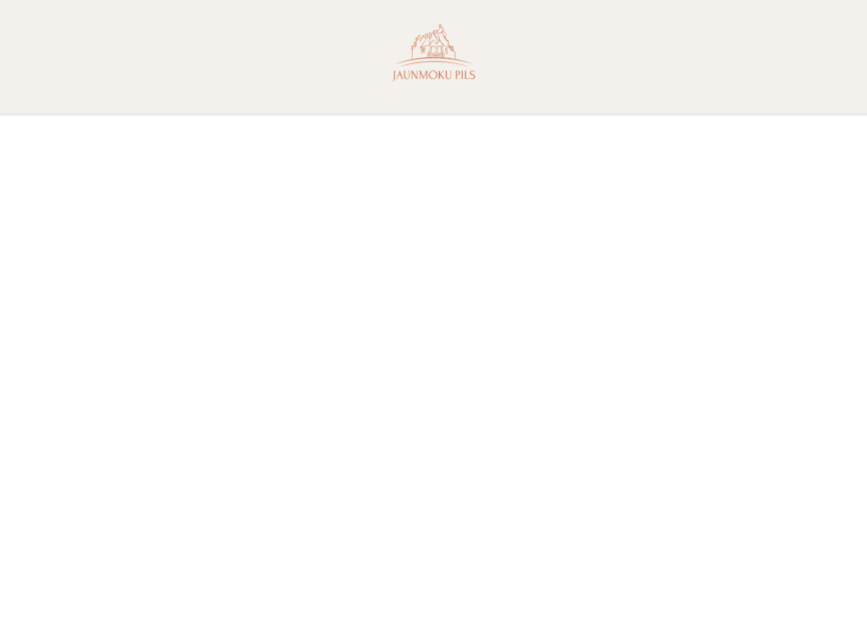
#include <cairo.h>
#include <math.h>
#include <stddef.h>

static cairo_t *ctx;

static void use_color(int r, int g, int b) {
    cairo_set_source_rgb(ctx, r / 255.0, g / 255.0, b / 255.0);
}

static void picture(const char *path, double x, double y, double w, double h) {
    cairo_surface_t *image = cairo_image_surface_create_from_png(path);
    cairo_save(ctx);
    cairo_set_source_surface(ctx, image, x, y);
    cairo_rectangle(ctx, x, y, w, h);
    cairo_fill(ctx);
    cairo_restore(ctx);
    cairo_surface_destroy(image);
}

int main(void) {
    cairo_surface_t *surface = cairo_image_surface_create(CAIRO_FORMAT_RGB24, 867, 638);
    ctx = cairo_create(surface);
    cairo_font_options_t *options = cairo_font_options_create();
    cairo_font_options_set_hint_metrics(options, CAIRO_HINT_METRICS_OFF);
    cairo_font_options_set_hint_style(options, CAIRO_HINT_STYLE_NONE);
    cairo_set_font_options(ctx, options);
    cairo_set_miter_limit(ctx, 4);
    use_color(255, 255, 255);
    cairo_paint(ctx);
    use_color(243, 244, 246);
    cairo_rectangle(ctx, 0, 115, 867, 1);
    cairo_fill(ctx);
    use_color(244, 241, 237);
    cairo_rectangle(ctx, 0, 0, 867, 113);
    cairo_fill(ctx);
    use_color(235, 234, 232);
    cairo_rectangle(ctx, 0, 113, 867, 2);
    cairo_fill(ctx);
    picture("img1.png", 392, 24, 84, 58);
    cairo_surface_write_to_png(surface, "result.png");
    cairo_font_options_destroy(options);
    cairo_destroy(ctx);
    cairo_surface_destroy(surface);
    return 0;
}
